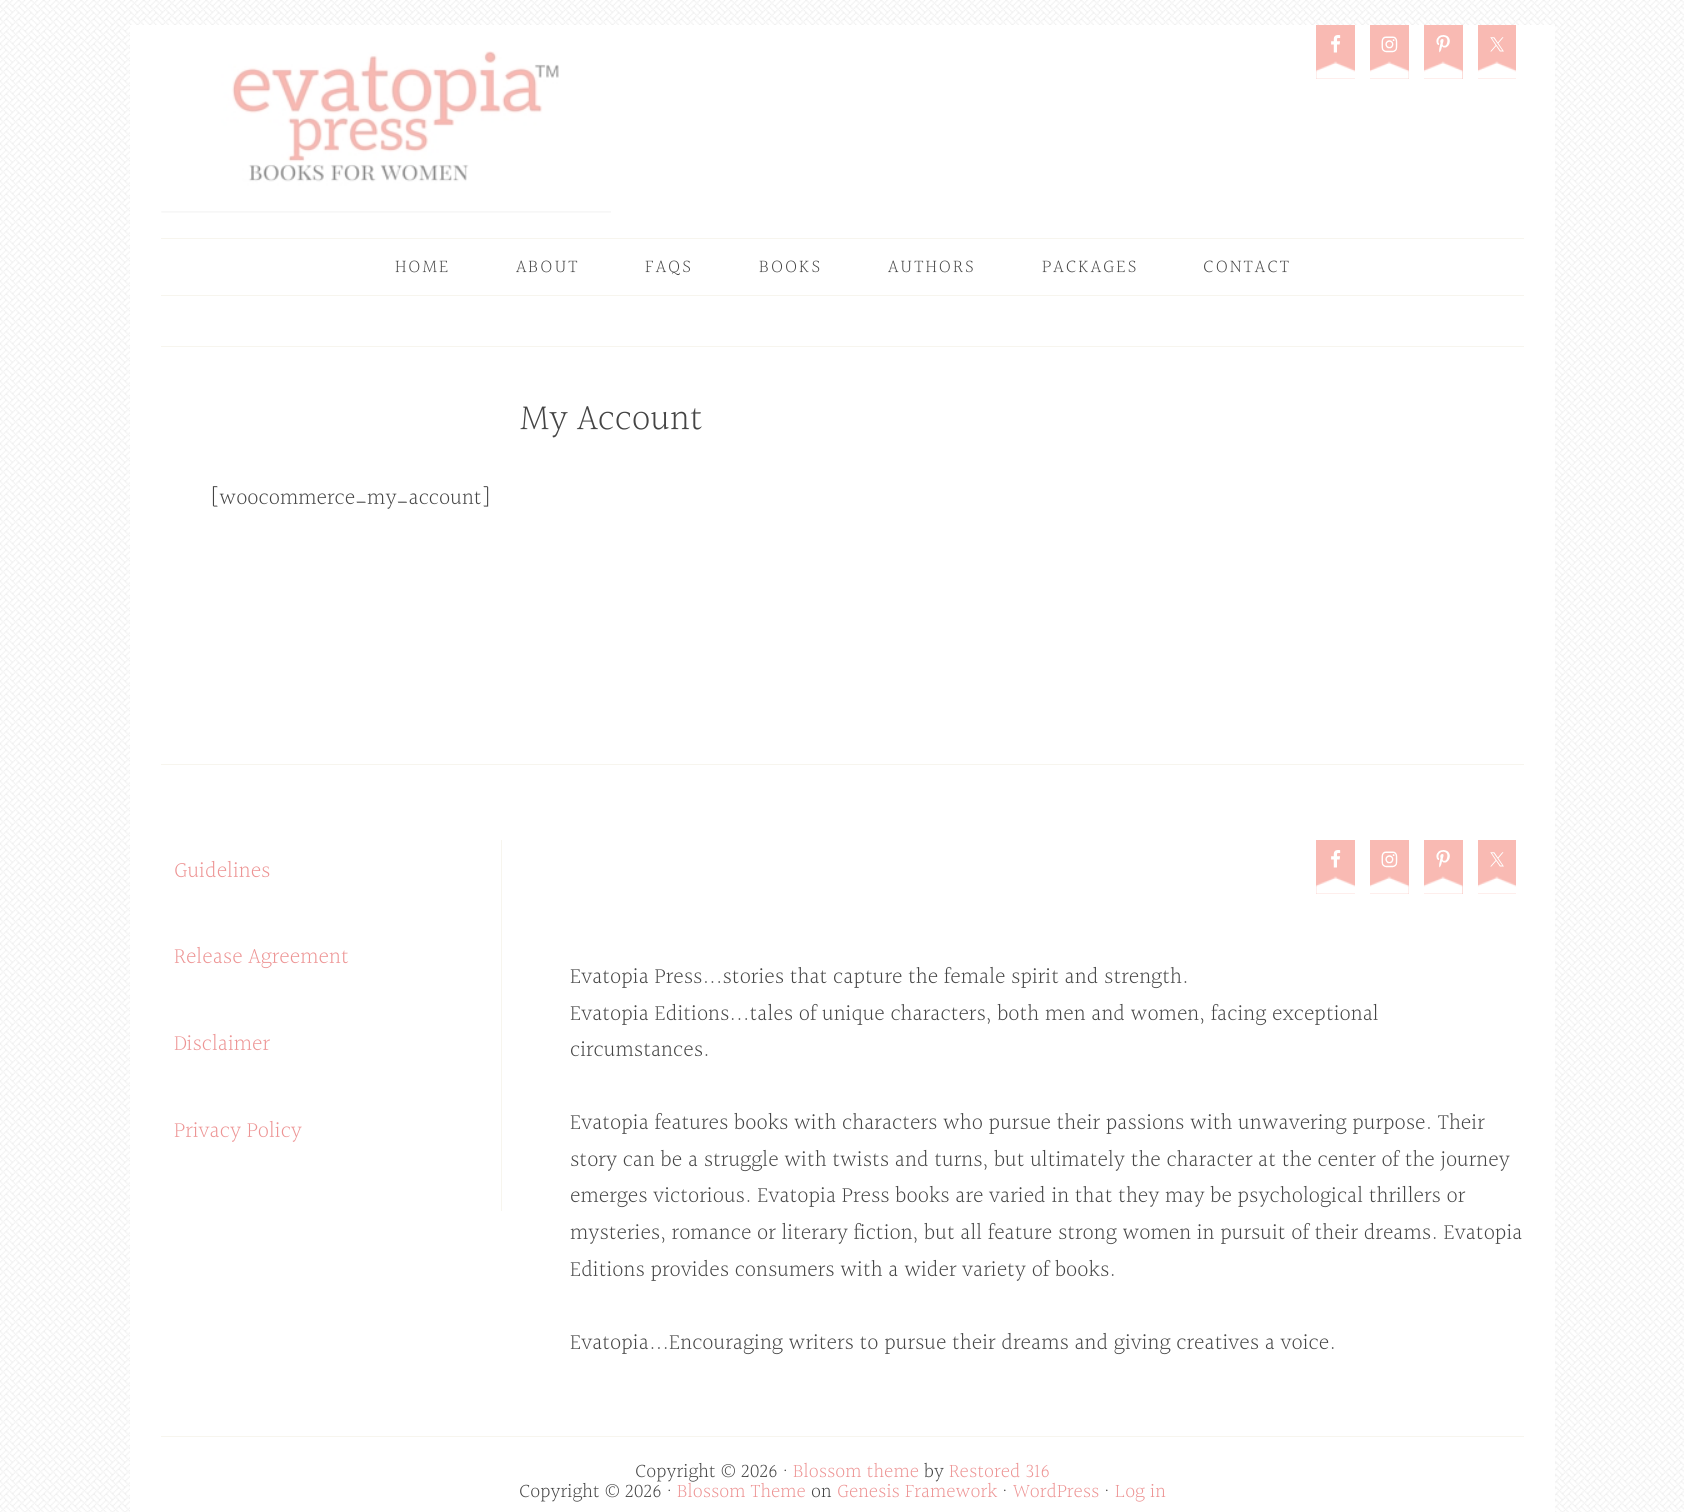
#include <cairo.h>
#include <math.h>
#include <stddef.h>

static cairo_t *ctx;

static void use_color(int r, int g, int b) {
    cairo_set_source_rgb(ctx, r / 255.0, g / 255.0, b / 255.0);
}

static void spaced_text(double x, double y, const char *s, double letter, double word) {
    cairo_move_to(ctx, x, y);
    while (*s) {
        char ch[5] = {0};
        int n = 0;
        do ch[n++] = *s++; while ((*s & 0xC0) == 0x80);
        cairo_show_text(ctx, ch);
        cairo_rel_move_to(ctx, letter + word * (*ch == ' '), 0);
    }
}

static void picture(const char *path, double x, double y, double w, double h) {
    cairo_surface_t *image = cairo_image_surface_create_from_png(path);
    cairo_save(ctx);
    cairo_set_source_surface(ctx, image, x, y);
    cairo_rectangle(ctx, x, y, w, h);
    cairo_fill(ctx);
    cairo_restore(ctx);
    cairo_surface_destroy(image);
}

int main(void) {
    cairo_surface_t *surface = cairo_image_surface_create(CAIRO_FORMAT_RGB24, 1684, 1512);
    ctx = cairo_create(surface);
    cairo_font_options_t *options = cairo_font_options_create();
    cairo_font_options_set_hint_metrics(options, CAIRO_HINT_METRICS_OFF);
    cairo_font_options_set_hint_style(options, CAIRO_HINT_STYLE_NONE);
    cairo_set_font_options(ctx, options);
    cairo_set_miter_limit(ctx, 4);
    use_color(255, 255, 255);
    cairo_paint(ctx);
    picture("img1.png", 0, 0, 1684, 1512);
    use_color(255, 255, 255);
    cairo_rectangle(ctx, 130, 25, 1425, 1487);
    cairo_fill(ctx);
    picture("img2.png", 161, 51, 450, 162);
    use_color(249, 186, 179);
    cairo_rectangle(ctx, 1316, 25, 39, 54);
    cairo_fill(ctx);
    picture("img3.png", 1316, 61, 39, 18);
    picture("img4.png", 1331, 35, 10, 18);
    cairo_rectangle(ctx, 1370, 25, 39, 54);
    cairo_fill(ctx);
    picture("img5.png", 1370, 61, 39, 18);
    picture("img6.png", 1381, 36, 17, 17);
    cairo_rectangle(ctx, 1424, 25, 39, 54);
    cairo_fill(ctx);
    picture("img7.png", 1424, 61, 39, 18);
    picture("img8.png", 1436, 35, 14, 18);
    cairo_rectangle(ctx, 1478, 25, 38, 54);
    cairo_fill(ctx);
    picture("img9.png", 1478, 61, 38, 18);
    picture("img10.png", 1490, 37, 14, 15);
    use_color(247, 245, 238);
    cairo_rectangle(ctx, 161, 238, 1363, 1);
    cairo_fill(ctx);
    cairo_rectangle(ctx, 161, 295, 1363, 1);
    cairo_fill(ctx);
    cairo_select_font_face(ctx, "Halant Light", CAIRO_FONT_SLANT_NORMAL, CAIRO_FONT_WEIGHT_NORMAL);
    cairo_set_font_size(ctx, 18.75);
    use_color(68, 68, 68);
    spaced_text(395, 273, "HOME", 2, 0);
    spaced_text(516, 273, "ABOUT", 2, 0);
    spaced_text(645, 273, "FAQS", 2, 0);
    spaced_text(759, 273, "BOOKS", 2, 0);
    spaced_text(888, 273, "AUTHORS", 2, 0);
    spaced_text(1042, 273, "PACKAGES", 2, 0);
    spaced_text(1203, 273, "CONTACT", 2, 0);
    use_color(247, 245, 238);
    cairo_rectangle(ctx, 161, 346, 1363, 1);
    cairo_fill(ctx);
    cairo_set_font_size(ctx, 37.5);
    use_color(68, 68, 68);
    cairo_move_to(ctx, 520, 431);
    cairo_show_text(ctx, "My Account");
    cairo_set_font_size(ctx, 22.5);
    cairo_move_to(ctx, 211, 505);
    cairo_show_text(ctx, "[woocommerce_my_account]");
    use_color(247, 245, 238);
    cairo_rectangle(ctx, 161, 764, 1363, 1);
    cairo_fill(ctx);
    cairo_rectangle(ctx, 161, 1436, 1363, 1);
    cairo_fill(ctx);
    cairo_rectangle(ctx, 501, 840, 1, 371);
    cairo_fill(ctx);
    use_color(237, 148, 148);
    cairo_move_to(ctx, 174, 878);
    cairo_show_text(ctx, "Guidelines");
    cairo_move_to(ctx, 174, 964);
    cairo_show_text(ctx, "Release Agreement");
    cairo_move_to(ctx, 174, 1051);
    cairo_show_text(ctx, "Disclaimer");
    cairo_move_to(ctx, 174, 1138);
    cairo_show_text(ctx, "Privacy Policy");
    use_color(249, 186, 179);
    cairo_rectangle(ctx, 1316, 840, 39, 54);
    cairo_fill(ctx);
    picture("img3.png", 1316, 876, 39, 18);
    picture("img4.png", 1331, 850, 10, 18);
    cairo_rectangle(ctx, 1370, 840, 39, 54);
    cairo_fill(ctx);
    picture("img5.png", 1370, 876, 39, 18);
    picture("img6.png", 1381, 851, 17, 17);
    cairo_rectangle(ctx, 1424, 840, 39, 54);
    cairo_fill(ctx);
    picture("img7.png", 1424, 876, 39, 18);
    picture("img8.png", 1436, 850, 14, 18);
    cairo_rectangle(ctx, 1478, 840, 38, 54);
    cairo_fill(ctx);
    picture("img9.png", 1478, 876, 38, 18);
    picture("img10.png", 1490, 852, 14, 15);
    use_color(68, 68, 68);
    cairo_move_to(ctx, 570, 984);
    cairo_show_text(ctx, "Evatopia Press...stories that capture the female spirit and strength.");
    cairo_move_to(ctx, 570, 1021);
    cairo_show_text(ctx, "Evatopia Editions...tales of unique characters, both men and women, facing exceptional");
    cairo_move_to(ctx, 570, 1057);
    cairo_show_text(ctx, "circumstances.");
    cairo_move_to(ctx, 570, 1130);
    cairo_show_text(ctx, "Evatopia features books with characters who pursue their passions with unwavering purpose. Their");
    cairo_move_to(ctx, 570, 1167);
    cairo_show_text(ctx, "story can be a struggle with twists and turns, but ultimately the character at the center of the journey");
    cairo_move_to(ctx, 570, 1203);
    cairo_show_text(ctx, "emerges victorious. Evatopia Press books are varied in that they may be psychological thrillers or");
    cairo_move_to(ctx, 570, 1240);
    cairo_show_text(ctx, "mysteries, romance or literary fiction, but all feature strong women in pursuit of their dreams. Evatopia");
    cairo_move_to(ctx, 570, 1277);
    cairo_show_text(ctx, "Editions provides consumers with a wider variety of books.");
    cairo_move_to(ctx, 570, 1350);
    cairo_show_text(ctx, "Evatopia...Encouraging writers to pursue their dreams and giving creatives a voice.");
    cairo_set_font_size(ctx, 20);
    cairo_move_to(ctx, 635, 1478);
    cairo_show_text(ctx, "Copyright © 2026 ·");
    use_color(237, 148, 148);
    cairo_move_to(ctx, 793, 1478);
    cairo_show_text(ctx, "Blossom theme");
    use_color(68, 68, 68);
    cairo_move_to(ctx, 924, 1478);
    cairo_show_text(ctx, "by");
    use_color(237, 148, 148);
    cairo_move_to(ctx, 949, 1478);
    cairo_show_text(ctx, "Restored 316");
    use_color(68, 68, 68);
    cairo_move_to(ctx, 519, 1498);
    cairo_show_text(ctx, "Copyright © 2026 ·");
    use_color(237, 148, 148);
    cairo_move_to(ctx, 677, 1498);
    cairo_show_text(ctx, "Blossom Theme");
    use_color(68, 68, 68);
    cairo_move_to(ctx, 811, 1498);
    cairo_show_text(ctx, "on");
    use_color(237, 148, 148);
    cairo_move_to(ctx, 837, 1498);
    cairo_show_text(ctx, "Genesis Framework");
    use_color(68, 68, 68);
    cairo_move_to(ctx, 1002, 1498);
    cairo_show_text(ctx, "·");
    use_color(237, 148, 148);
    cairo_move_to(ctx, 1013, 1498);
    cairo_show_text(ctx, "WordPress");
    use_color(68, 68, 68);
    cairo_move_to(ctx, 1104, 1498);
    cairo_show_text(ctx, "·");
    use_color(237, 148, 148);
    cairo_move_to(ctx, 1115, 1498);
    cairo_show_text(ctx, "Log in");
    cairo_surface_write_to_png(surface, "result.png");
    cairo_font_options_destroy(options);
    cairo_destroy(ctx);
    cairo_surface_destroy(surface);
    return 0;
}
